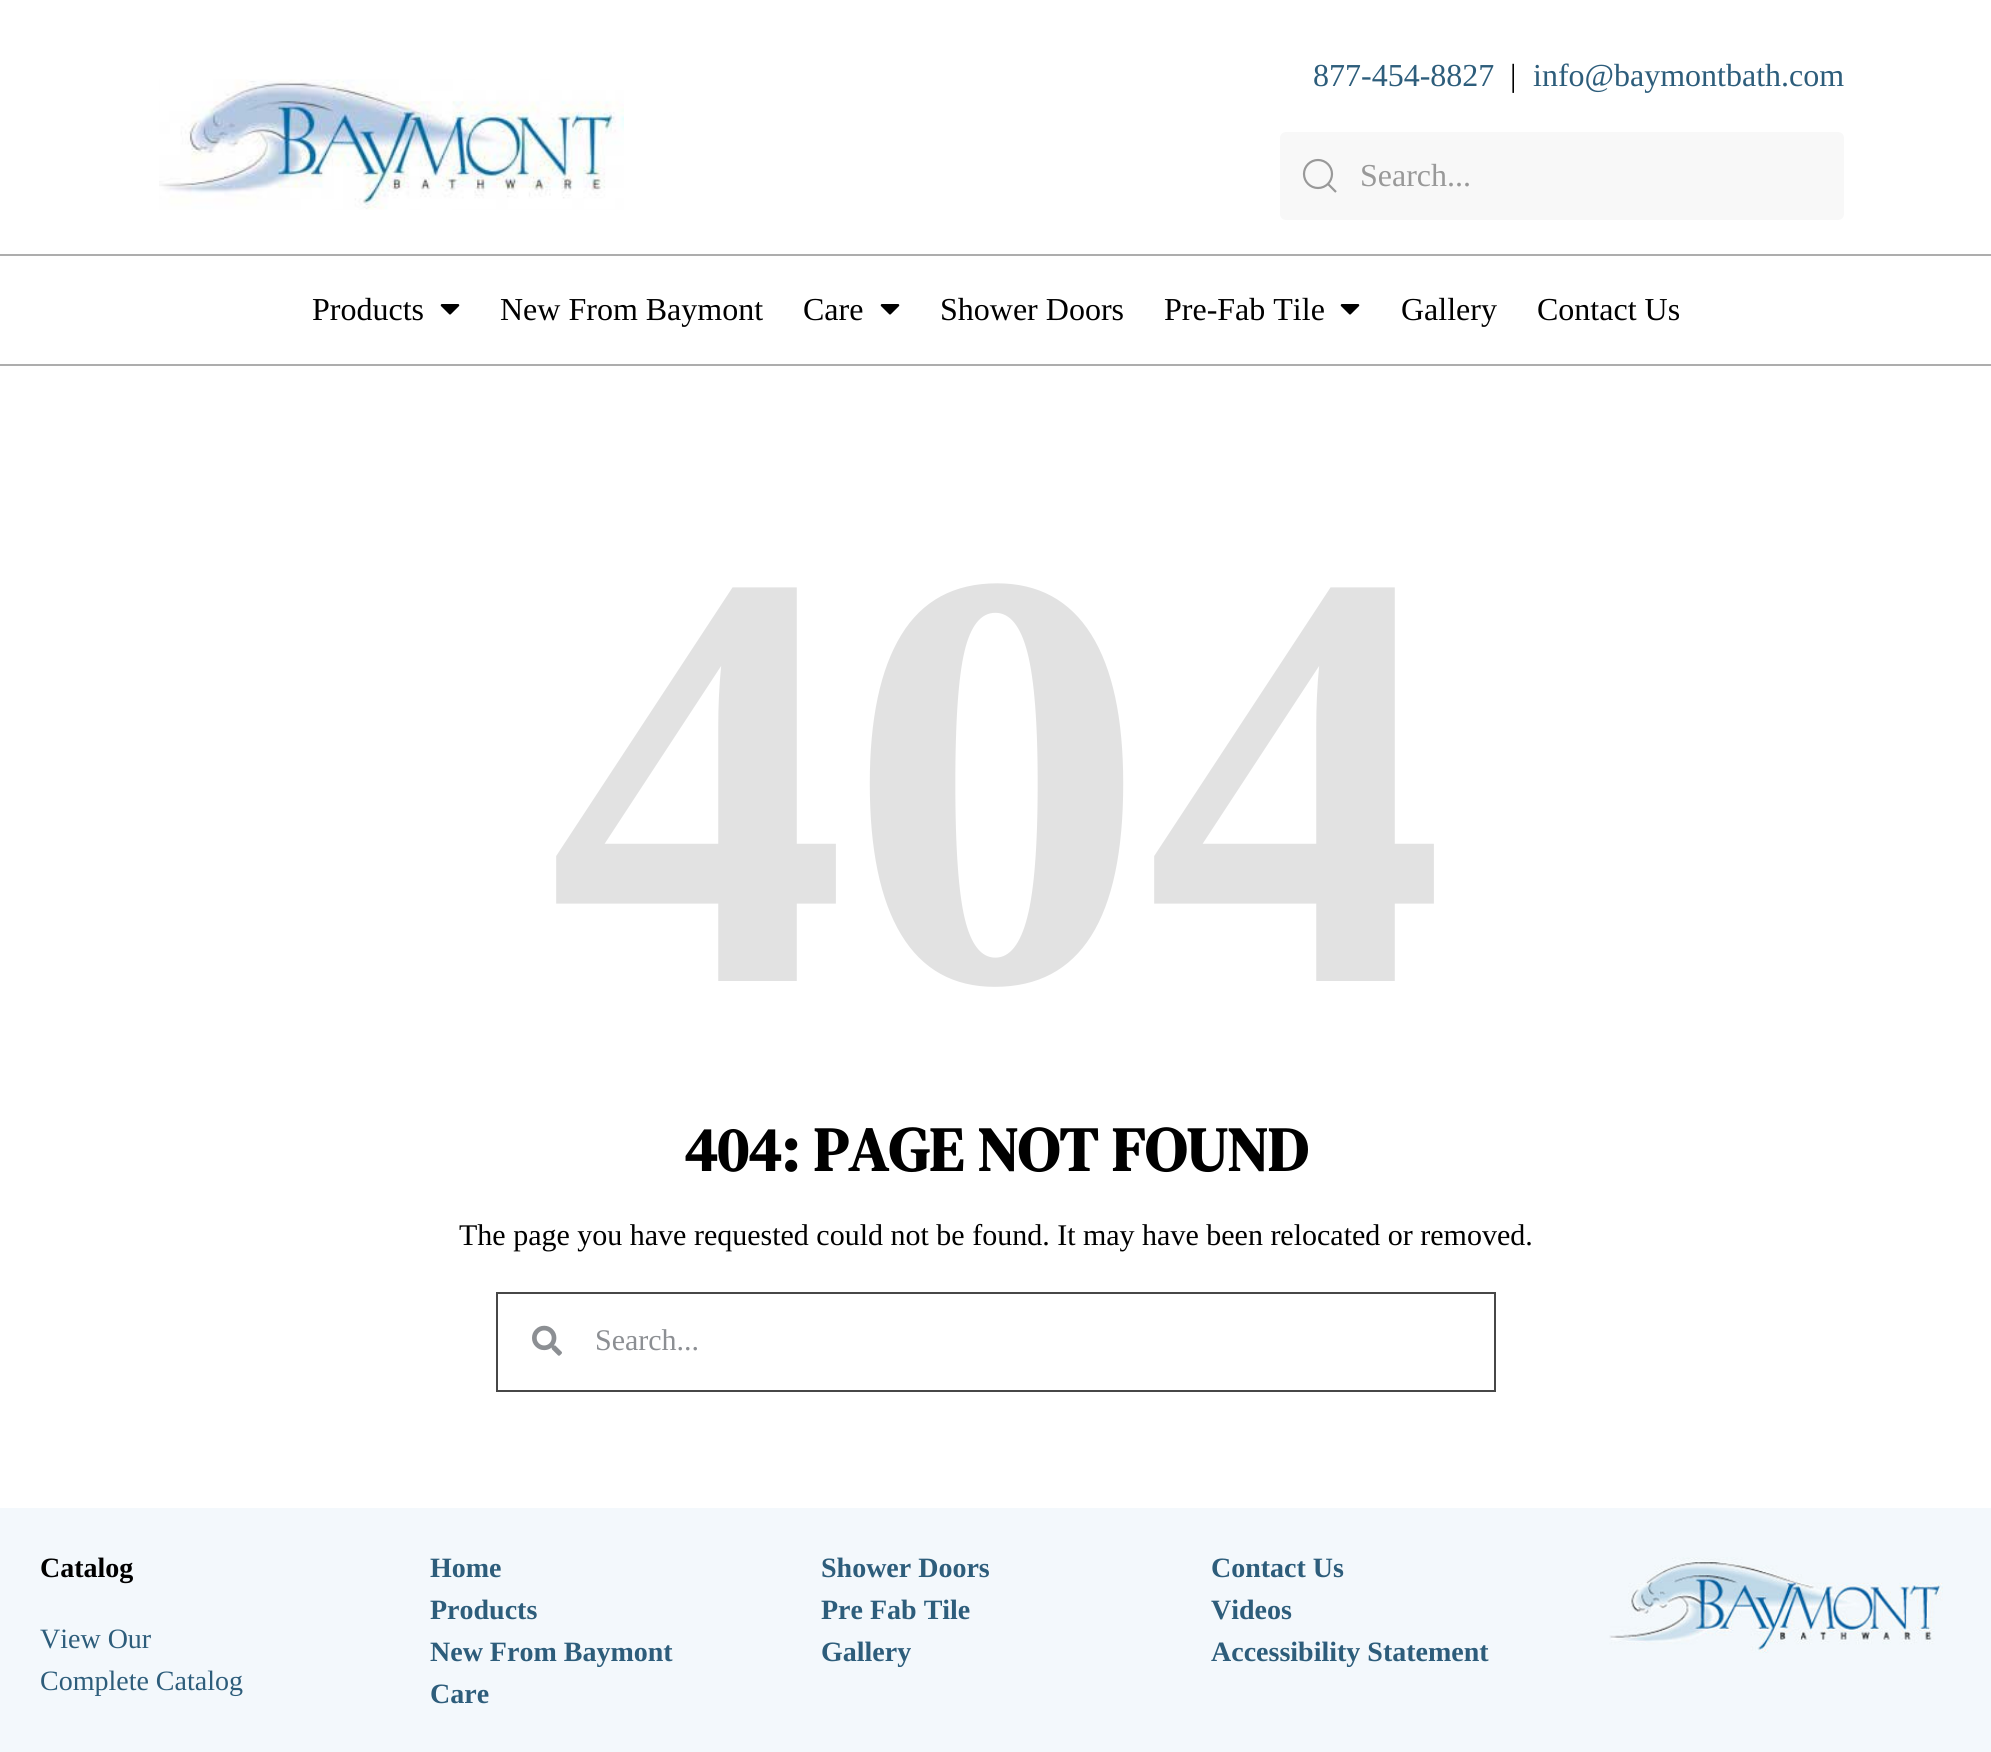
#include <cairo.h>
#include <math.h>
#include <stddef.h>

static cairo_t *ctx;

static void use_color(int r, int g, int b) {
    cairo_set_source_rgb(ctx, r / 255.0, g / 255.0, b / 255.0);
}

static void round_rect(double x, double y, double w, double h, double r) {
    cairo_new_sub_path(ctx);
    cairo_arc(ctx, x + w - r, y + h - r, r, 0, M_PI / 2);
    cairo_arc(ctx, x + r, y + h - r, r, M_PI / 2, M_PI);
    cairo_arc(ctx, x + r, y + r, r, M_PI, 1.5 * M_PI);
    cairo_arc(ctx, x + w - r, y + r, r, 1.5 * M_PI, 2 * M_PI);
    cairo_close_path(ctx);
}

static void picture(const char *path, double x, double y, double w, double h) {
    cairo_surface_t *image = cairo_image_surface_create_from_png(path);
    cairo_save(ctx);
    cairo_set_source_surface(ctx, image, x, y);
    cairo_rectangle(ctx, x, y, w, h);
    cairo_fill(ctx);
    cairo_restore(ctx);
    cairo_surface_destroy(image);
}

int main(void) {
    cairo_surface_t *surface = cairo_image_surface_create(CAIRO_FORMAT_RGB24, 1991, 1752);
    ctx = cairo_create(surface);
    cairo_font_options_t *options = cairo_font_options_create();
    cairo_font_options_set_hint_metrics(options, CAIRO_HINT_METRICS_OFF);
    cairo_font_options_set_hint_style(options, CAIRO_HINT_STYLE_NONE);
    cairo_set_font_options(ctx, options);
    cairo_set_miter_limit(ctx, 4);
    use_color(255, 255, 255);
    cairo_paint(ctx);
    picture("img1.png", 159, 79, 465, 131);
    cairo_select_font_face(ctx, "Liberation Serif", CAIRO_FONT_SLANT_NORMAL, CAIRO_FONT_WEIGHT_NORMAL);
    cairo_set_font_size(ctx, 32);
    use_color(45, 93, 123);
    cairo_move_to(ctx, 1313, 86);
    cairo_show_text(ctx, "877-454-8827");
    use_color(0, 0, 0);
    cairo_move_to(ctx, 1510, 86);
    cairo_show_text(ctx, "|");
    use_color(45, 93, 123);
    cairo_move_to(ctx, 1533, 86);
    cairo_show_text(ctx, "info@baymontbath.com");
    use_color(248, 248, 248);
    round_rect(1280, 132, 564, 88, 6);
    cairo_fill(ctx);
    cairo_arc(ctx, 1318, 174, 14, 0, 2 * M_PI);
    use_color(153, 153, 153);
    cairo_set_line_width(ctx, 2.2);
    cairo_stroke(ctx);
    cairo_new_path(ctx);
    cairo_move_to(ctx, 1328, 184);
    cairo_line_to(ctx, 1336, 192);
    cairo_close_path(ctx);
    cairo_stroke(ctx);
    cairo_move_to(ctx, 1360, 186);
    cairo_show_text(ctx, "Search...");
    use_color(173, 173, 173);
    cairo_rectangle(ctx, 0, 254, 1991, 2);
    cairo_fill(ctx);
    cairo_rectangle(ctx, 0, 364, 1991, 2);
    cairo_fill(ctx);
    use_color(0, 0, 0);
    cairo_move_to(ctx, 312, 320);
    cairo_show_text(ctx, "Products");
    picture("img2.png", 440, 304, 20, 11);
    cairo_move_to(ctx, 500, 320);
    cairo_show_text(ctx, "New From Baymont");
    cairo_move_to(ctx, 803, 320);
    cairo_show_text(ctx, "Care");
    picture("img2.png", 880, 304, 20, 11);
    cairo_move_to(ctx, 940, 320);
    cairo_show_text(ctx, "Shower Doors");
    cairo_move_to(ctx, 1164, 320);
    cairo_show_text(ctx, "Pre-Fab Tile");
    picture("img2.png", 1340, 304, 20, 11);
    cairo_move_to(ctx, 1401, 320);
    cairo_show_text(ctx, "Gallery");
    cairo_move_to(ctx, 1537, 320);
    cairo_show_text(ctx, "Contact Us");
    cairo_select_font_face(ctx, "Liberation Serif", CAIRO_FONT_SLANT_NORMAL, CAIRO_FONT_WEIGHT_BOLD);
    cairo_set_font_size(ctx, 598);
    use_color(226, 226, 226);
    cairo_move_to(ctx, 548, 981);
    cairo_show_text(ctx, "404");
    cairo_select_font_face(ctx, "DM Serif Text", CAIRO_FONT_SLANT_NORMAL, CAIRO_FONT_WEIGHT_BOLD);
    cairo_set_font_size(ctx, 62);
    use_color(0, 0, 0);
    cairo_move_to(ctx, 684, 1171);
    cairo_show_text(ctx, "404: PAGE NOT FOUND");
    cairo_select_font_face(ctx, "Liberation Serif", CAIRO_FONT_SLANT_NORMAL, CAIRO_FONT_WEIGHT_NORMAL);
    cairo_set_font_size(ctx, 30);
    cairo_move_to(ctx, 459, 1245);
    cairo_show_text(ctx, "The page you have requested could not be found. It may have been relocated or removed.");
    cairo_rectangle(ctx, 497, 1293, 998, 98);
    use_color(71, 71, 71);
    cairo_set_line_width(ctx, 2);
    cairo_stroke(ctx);
    picture("img3.png", 532, 1325, 30, 31);
    use_color(140, 143, 147);
    cairo_move_to(ctx, 595, 1350);
    cairo_show_text(ctx, "Search...");
    use_color(243, 248, 252);
    cairo_rectangle(ctx, 0, 1508, 1991, 244);
    cairo_fill(ctx);
    cairo_select_font_face(ctx, "Liberation Serif", CAIRO_FONT_SLANT_NORMAL, CAIRO_FONT_WEIGHT_BOLD);
    cairo_set_font_size(ctx, 28);
    use_color(0, 0, 0);
    cairo_move_to(ctx, 40, 1577);
    cairo_show_text(ctx, "Catalog");
    cairo_select_font_face(ctx, "Liberation Serif", CAIRO_FONT_SLANT_NORMAL, CAIRO_FONT_WEIGHT_NORMAL);
    use_color(45, 93, 123);
    cairo_move_to(ctx, 40, 1648);
    cairo_show_text(ctx, "View Our");
    cairo_move_to(ctx, 40, 1690);
    cairo_show_text(ctx, "Complete Catalog");
    cairo_select_font_face(ctx, "Liberation Serif", CAIRO_FONT_SLANT_NORMAL, CAIRO_FONT_WEIGHT_BOLD);
    cairo_move_to(ctx, 430, 1577);
    cairo_show_text(ctx, "Home");
    cairo_move_to(ctx, 430, 1619);
    cairo_show_text(ctx, "Products");
    cairo_move_to(ctx, 430, 1661);
    cairo_show_text(ctx, "New From Baymont");
    cairo_move_to(ctx, 430, 1703);
    cairo_show_text(ctx, "Care");
    cairo_move_to(ctx, 821, 1577);
    cairo_show_text(ctx, "Shower Doors");
    cairo_move_to(ctx, 821, 1619);
    cairo_show_text(ctx, "Pre Fab Tile");
    cairo_move_to(ctx, 821, 1661);
    cairo_show_text(ctx, "Gallery");
    cairo_move_to(ctx, 1211, 1577);
    cairo_show_text(ctx, "Contact Us");
    cairo_move_to(ctx, 1211, 1619);
    cairo_show_text(ctx, "Videos");
    cairo_move_to(ctx, 1211, 1661);
    cairo_show_text(ctx, "Accessibility Statement");
    picture("img4.png", 1609, 1557, 334, 96);
    cairo_surface_write_to_png(surface, "result.png");
    cairo_font_options_destroy(options);
    cairo_destroy(ctx);
    cairo_surface_destroy(surface);
    return 0;
}
